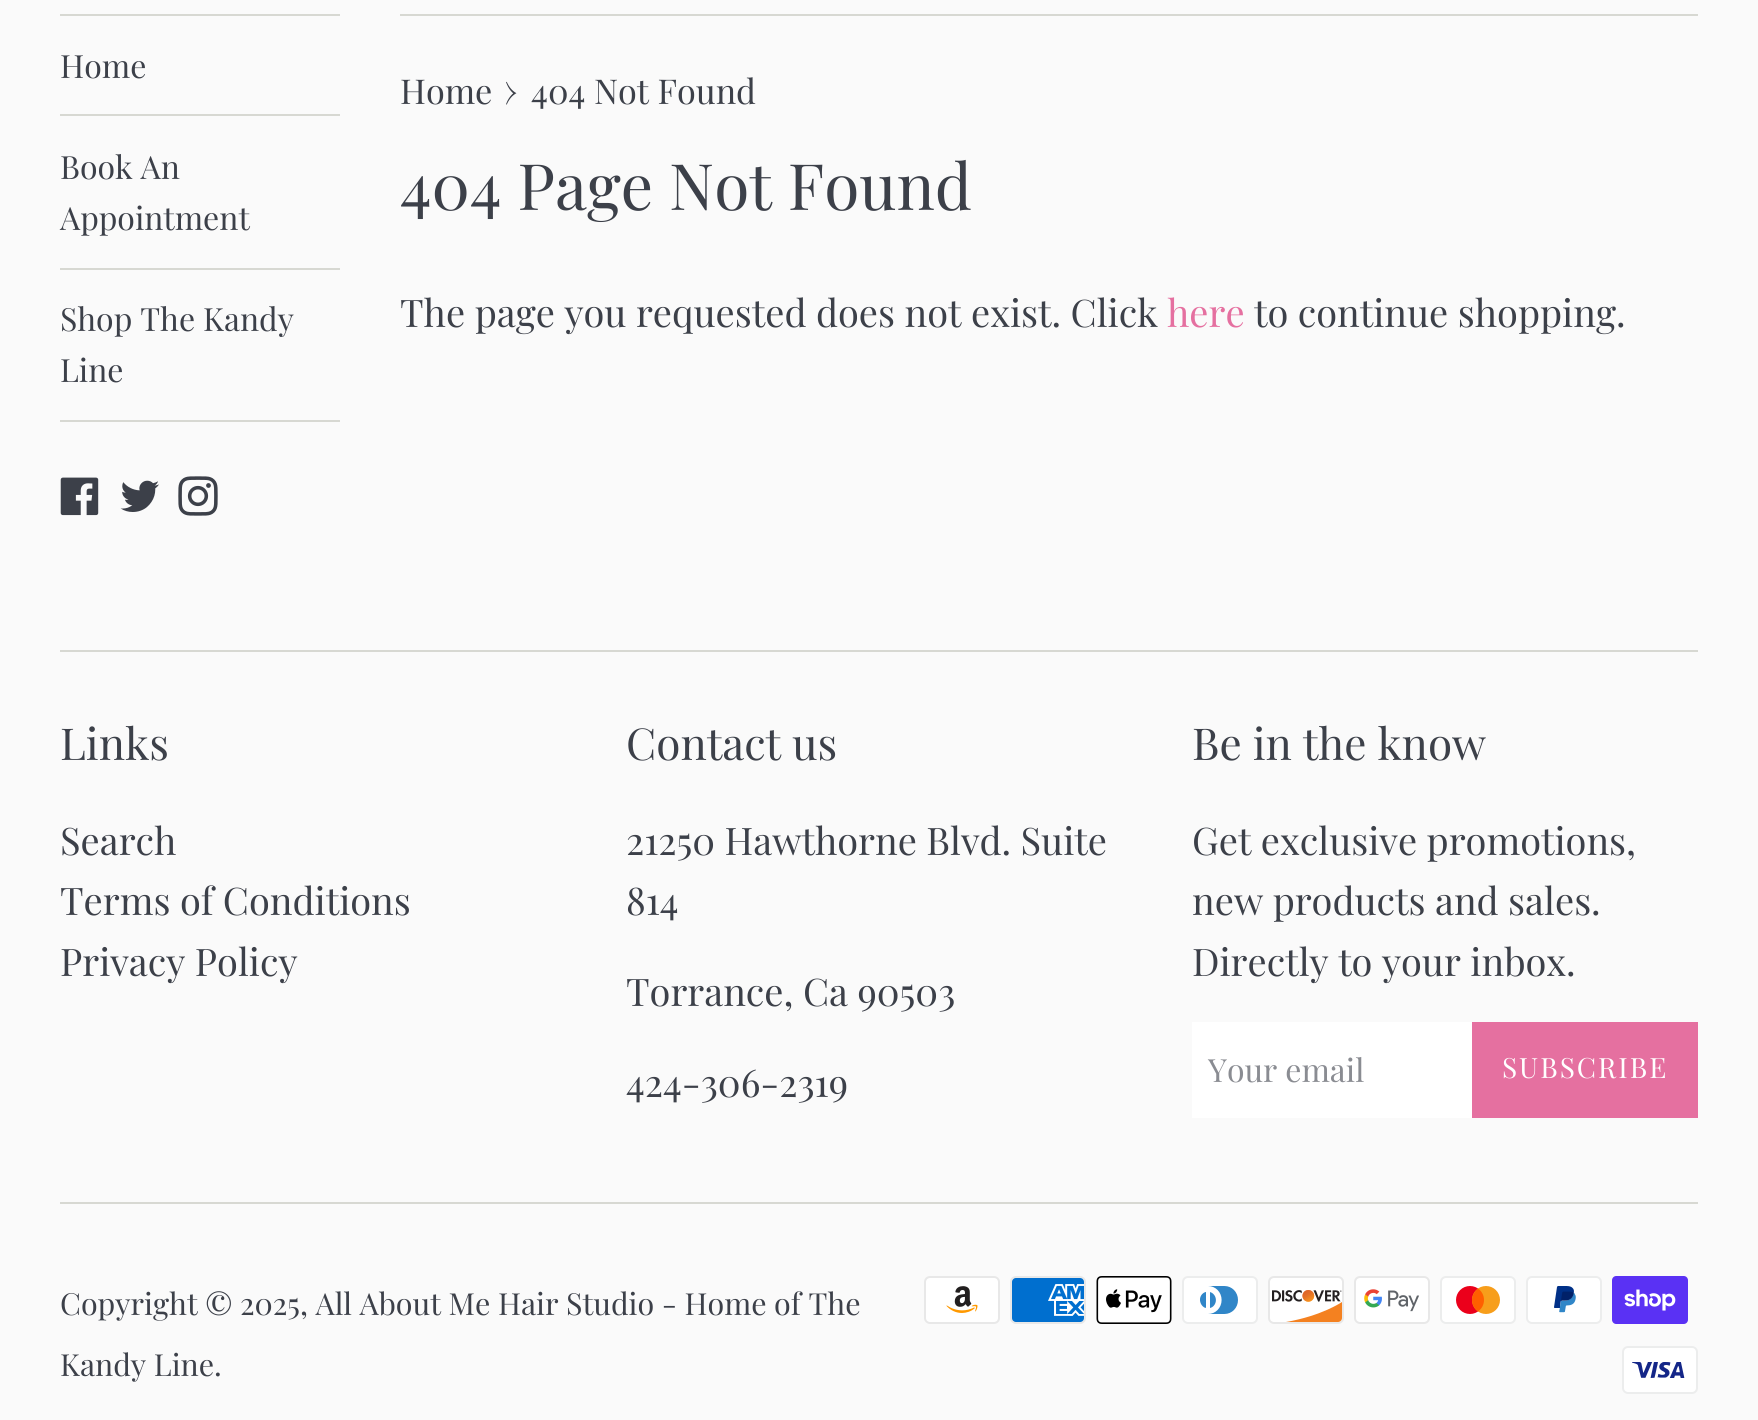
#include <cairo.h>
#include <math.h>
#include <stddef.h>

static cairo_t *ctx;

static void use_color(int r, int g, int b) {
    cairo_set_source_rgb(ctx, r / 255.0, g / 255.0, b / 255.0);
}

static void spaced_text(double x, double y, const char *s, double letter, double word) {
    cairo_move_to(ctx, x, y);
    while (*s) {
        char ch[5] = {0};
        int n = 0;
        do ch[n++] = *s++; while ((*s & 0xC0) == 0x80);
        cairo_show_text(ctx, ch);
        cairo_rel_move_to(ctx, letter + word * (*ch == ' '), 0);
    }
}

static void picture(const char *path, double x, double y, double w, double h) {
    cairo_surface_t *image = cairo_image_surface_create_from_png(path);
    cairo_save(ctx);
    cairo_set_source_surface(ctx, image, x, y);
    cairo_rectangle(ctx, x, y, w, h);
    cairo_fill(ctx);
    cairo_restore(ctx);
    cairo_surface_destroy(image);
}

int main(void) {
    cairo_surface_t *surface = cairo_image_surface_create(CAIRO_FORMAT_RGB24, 1758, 1420);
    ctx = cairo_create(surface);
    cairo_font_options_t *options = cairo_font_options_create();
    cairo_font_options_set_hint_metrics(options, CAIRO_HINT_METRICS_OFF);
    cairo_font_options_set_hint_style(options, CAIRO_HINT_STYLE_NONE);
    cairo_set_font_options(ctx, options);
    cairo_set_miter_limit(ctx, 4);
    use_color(250, 250, 250);
    cairo_paint(ctx);
    use_color(215, 216, 210);
    cairo_rectangle(ctx, 60, 14, 280, 2);
    cairo_fill(ctx);
    cairo_rectangle(ctx, 60, 114, 280, 2);
    cairo_fill(ctx);
    cairo_select_font_face(ctx, "Playfair Display", CAIRO_FONT_SLANT_NORMAL, CAIRO_FONT_WEIGHT_NORMAL);
    cairo_set_font_size(ctx, 32);
    use_color(60, 64, 73);
    cairo_move_to(ctx, 60, 78);
    cairo_show_text(ctx, "Home");
    use_color(215, 216, 210);
    cairo_rectangle(ctx, 60, 268, 280, 2);
    cairo_fill(ctx);
    use_color(60, 64, 73);
    cairo_move_to(ctx, 60, 179);
    cairo_show_text(ctx, "Book An");
    cairo_move_to(ctx, 60, 230);
    cairo_show_text(ctx, "Appointment");
    use_color(215, 216, 210);
    cairo_rectangle(ctx, 60, 420, 280, 2);
    cairo_fill(ctx);
    use_color(60, 64, 73);
    cairo_move_to(ctx, 60, 331);
    cairo_show_text(ctx, "Shop The Kandy");
    cairo_move_to(ctx, 60, 382);
    cairo_show_text(ctx, "Line");
    picture("img1.png", 60, 477, 39, 39);
    picture("img2.png", 120, 480, 39, 32);
    picture("img3.png", 178, 476, 40, 40);
    use_color(215, 216, 210);
    cairo_rectangle(ctx, 400, 14, 1298, 2);
    cairo_fill(ctx);
    cairo_set_font_size(ctx, 34.25);
    use_color(60, 64, 73);
    cairo_move_to(ctx, 400, 104);
    cairo_show_text(ctx, "Home");
    cairo_set_font_size(ctx, 42);
    cairo_move_to(ctx, 504, 104);
    cairo_show_text(ctx, "›");
    cairo_set_font_size(ctx, 34.25);
    cairo_move_to(ctx, 531, 104);
    cairo_show_text(ctx, "404 Not Found");
    cairo_set_font_size(ctx, 64);
    cairo_move_to(ctx, 400, 210);
    cairo_show_text(ctx, "404 Page Not Found");
    cairo_set_font_size(ctx, 38);
    cairo_move_to(ctx, 400, 327);
    cairo_show_text(ctx, "The page you requested does not exist. Click");
    use_color(229, 112, 160);
    cairo_move_to(ctx, 1167, 327);
    cairo_show_text(ctx, "here");
    use_color(60, 64, 73);
    cairo_move_to(ctx, 1254, 327);
    cairo_show_text(ctx, "to continue shopping.");
    use_color(215, 216, 210);
    cairo_rectangle(ctx, 60, 650, 1638, 2);
    cairo_fill(ctx);
    cairo_set_font_size(ctx, 44);
    use_color(60, 64, 73);
    cairo_move_to(ctx, 60, 760);
    cairo_show_text(ctx, "Links");
    cairo_set_font_size(ctx, 38);
    cairo_move_to(ctx, 60, 855);
    cairo_show_text(ctx, "Search");
    cairo_move_to(ctx, 60, 915);
    cairo_show_text(ctx, "Terms of Conditions");
    cairo_move_to(ctx, 60, 976);
    cairo_show_text(ctx, "Privacy Policy");
    cairo_set_font_size(ctx, 44);
    cairo_move_to(ctx, 626, 760);
    cairo_show_text(ctx, "Contact us");
    cairo_set_font_size(ctx, 38);
    cairo_move_to(ctx, 626, 855);
    cairo_show_text(ctx, "21250 Hawthorne Blvd. Suite");
    cairo_move_to(ctx, 626, 915);
    cairo_show_text(ctx, "814");
    cairo_move_to(ctx, 626, 1006);
    cairo_show_text(ctx, "Torrance, Ca 90503");
    cairo_move_to(ctx, 626, 1097);
    cairo_show_text(ctx, "424-306-2319");
    cairo_set_font_size(ctx, 44);
    cairo_move_to(ctx, 1192, 760);
    cairo_show_text(ctx, "Be in the know");
    cairo_set_font_size(ctx, 38);
    cairo_move_to(ctx, 1192, 855);
    cairo_show_text(ctx, "Get exclusive promotions,");
    cairo_move_to(ctx, 1192, 915);
    cairo_show_text(ctx, "new products and sales.");
    cairo_move_to(ctx, 1192, 976);
    cairo_show_text(ctx, "Directly to your inbox.");
    use_color(255, 255, 255);
    cairo_rectangle(ctx, 1192, 1022, 280, 96);
    cairo_fill(ctx);
    cairo_set_font_size(ctx, 32);
    use_color(138, 140, 146);
    cairo_move_to(ctx, 1208, 1082);
    cairo_show_text(ctx, "Your email");
    use_color(229, 112, 160);
    cairo_rectangle(ctx, 1472, 1022, 226, 96);
    cairo_fill(ctx);
    cairo_set_font_size(ctx, 28);
    use_color(255, 255, 255);
    spaced_text(1502, 1078, "SUBSCRIBE", 2, 0);
    use_color(215, 216, 210);
    cairo_rectangle(ctx, 60, 1202, 1638, 2);
    cairo_fill(ctx);
    cairo_set_font_size(ctx, 30.4);
    use_color(60, 64, 73);
    cairo_move_to(ctx, 60, 1315);
    cairo_show_text(ctx, "Copyright © 2025, All About Me Hair Studio - Home of The");
    cairo_move_to(ctx, 60, 1376);
    cairo_show_text(ctx, "Kandy Line.");
    picture("img4.png", 924, 1276, 76, 48);
    picture("img5.png", 1010, 1276, 76, 48);
    picture("img6.png", 1096, 1276, 76, 48);
    picture("img7.png", 1182, 1276, 76, 48);
    picture("img8.png", 1268, 1276, 76, 48);
    picture("img9.png", 1354, 1276, 76, 48);
    picture("img10.png", 1440, 1276, 76, 48);
    picture("img11.png", 1526, 1276, 76, 48);
    picture("img12.png", 1612, 1276, 76, 48);
    picture("img13.png", 1622, 1346, 76, 48);
    cairo_surface_write_to_png(surface, "result.png");
    cairo_font_options_destroy(options);
    cairo_destroy(ctx);
    cairo_surface_destroy(surface);
    return 0;
}
